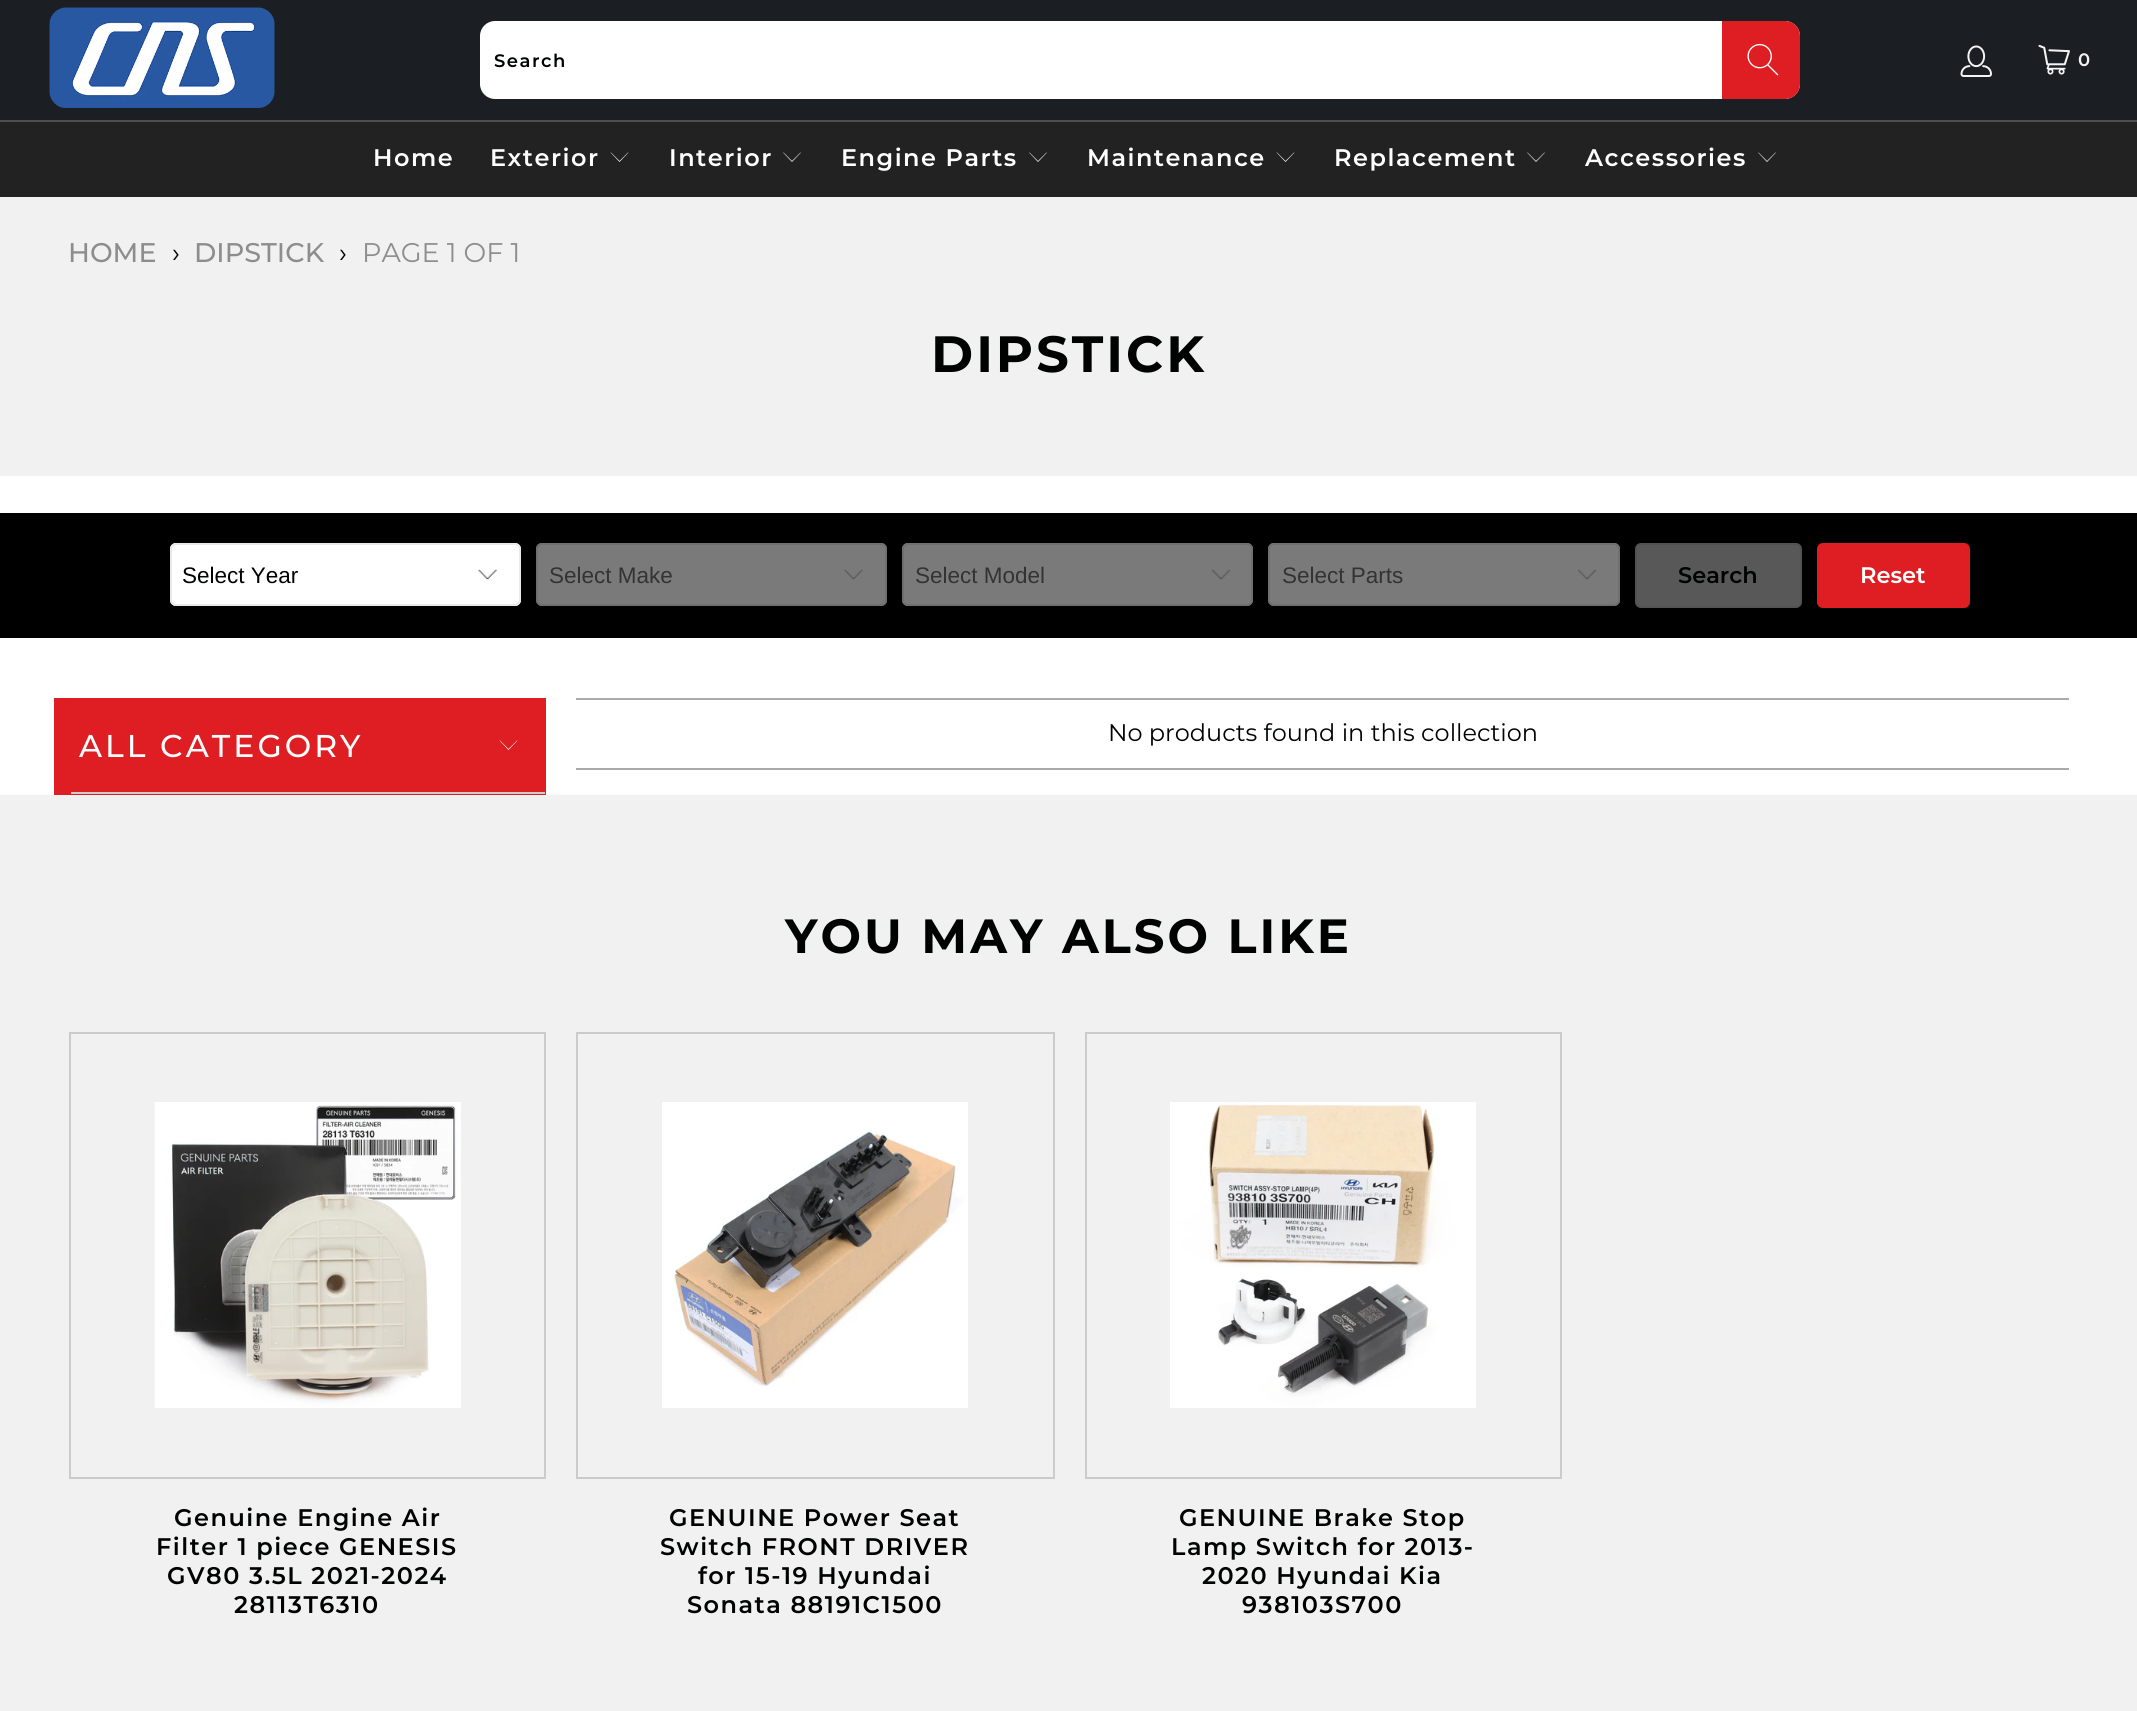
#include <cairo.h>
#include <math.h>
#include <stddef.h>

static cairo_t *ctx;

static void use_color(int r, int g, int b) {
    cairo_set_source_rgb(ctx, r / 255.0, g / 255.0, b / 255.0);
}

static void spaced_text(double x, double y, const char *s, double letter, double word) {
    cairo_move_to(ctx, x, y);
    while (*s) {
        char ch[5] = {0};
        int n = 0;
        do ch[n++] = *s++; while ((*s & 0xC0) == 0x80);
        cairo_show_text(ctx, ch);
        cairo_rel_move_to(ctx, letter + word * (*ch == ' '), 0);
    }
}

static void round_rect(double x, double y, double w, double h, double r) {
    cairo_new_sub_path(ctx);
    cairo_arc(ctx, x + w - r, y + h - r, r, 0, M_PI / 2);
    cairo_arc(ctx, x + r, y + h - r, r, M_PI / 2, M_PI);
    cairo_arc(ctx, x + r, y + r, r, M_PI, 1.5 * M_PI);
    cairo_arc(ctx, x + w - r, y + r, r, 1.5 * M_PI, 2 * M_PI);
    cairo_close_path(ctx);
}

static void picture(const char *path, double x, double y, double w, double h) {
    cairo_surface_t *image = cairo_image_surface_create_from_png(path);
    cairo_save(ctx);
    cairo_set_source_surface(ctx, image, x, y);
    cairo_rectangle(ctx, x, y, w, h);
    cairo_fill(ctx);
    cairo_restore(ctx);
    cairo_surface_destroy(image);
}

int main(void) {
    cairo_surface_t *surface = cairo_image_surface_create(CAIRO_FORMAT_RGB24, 2137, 1711);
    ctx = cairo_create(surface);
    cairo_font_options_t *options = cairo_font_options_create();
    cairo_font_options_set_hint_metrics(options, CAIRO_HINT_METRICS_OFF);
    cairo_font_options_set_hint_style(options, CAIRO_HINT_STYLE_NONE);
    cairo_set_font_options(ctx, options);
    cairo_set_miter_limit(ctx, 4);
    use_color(255, 255, 255);
    cairo_paint(ctx);
    use_color(27, 31, 35);
    cairo_rectangle(ctx, 0, 0, 2137, 120);
    cairo_fill(ctx);
    picture("img1.png", 49, 7, 226, 101);
    use_color(255, 255, 255);
    round_rect(480, 21, 1320, 78, 15);
    cairo_fill(ctx);
    cairo_select_font_face(ctx, "Montserrat SemiBold", CAIRO_FONT_SLANT_NORMAL, CAIRO_FONT_WEIGHT_NORMAL);
    cairo_set_font_size(ctx, 18);
    use_color(0, 1, 1);
    spaced_text(494, 67, "Search", 1.5, 0);
    use_color(223, 30, 35);
    cairo_new_path(ctx);
    cairo_move_to(ctx, 1722, 21);
    cairo_line_to(ctx, 1785, 21);
    cairo_curve_to(ctx, 1793.5, 21, 1800, 27.5, 1800, 36);
    cairo_line_to(ctx, 1800, 84);
    cairo_curve_to(ctx, 1800, 92.5, 1793.5, 99, 1785, 99);
    cairo_line_to(ctx, 1722, 99);
    cairo_close_path(ctx);
    cairo_fill(ctx);
    picture("img2.png", 1747, 43, 32, 33);
    picture("img3.png", 1960, 45, 32, 32);
    picture("img4.png", 2038, 44, 32, 31);
    use_color(244, 244, 244);
    spaced_text(2078, 66, "0", 1.5, 0);
    use_color(34, 34, 34);
    cairo_rectangle(ctx, 0, 122, 2137, 75);
    cairo_fill(ctx);
    use_color(78, 78, 78);
    cairo_rectangle(ctx, 0, 120, 2137, 2);
    cairo_fill(ctx);
    cairo_set_font_size(ctx, 24);
    use_color(255, 255, 255);
    spaced_text(373, 166, "Home", 1.5, 0);
    spaced_text(490, 166, "Exterior", 1.5, 0);
    cairo_new_path(ctx);
    cairo_move_to(ctx, 619.5, 162);
    cairo_line_to(ctx, 610.5, 152.5);
    cairo_line_to(ctx, 611, 152.5);
    cairo_line_to(ctx, 619.5, 161);
    cairo_line_to(ctx, 628, 152.5);
    cairo_line_to(ctx, 628.5, 152.5);
    cairo_close_path(ctx);
    cairo_fill(ctx);
    spaced_text(669, 166, "Interior", 1.5, 0);
    cairo_new_path(ctx);
    cairo_move_to(ctx, 792, 162);
    cairo_line_to(ctx, 783, 152.5);
    cairo_line_to(ctx, 783.5, 152.5);
    cairo_line_to(ctx, 792, 161);
    cairo_line_to(ctx, 800.5, 152.5);
    cairo_line_to(ctx, 801, 152.5);
    cairo_close_path(ctx);
    cairo_fill(ctx);
    spaced_text(841, 166, "Engine Parts", 1.5, 0);
    cairo_new_path(ctx);
    cairo_move_to(ctx, 1038, 162);
    cairo_line_to(ctx, 1029, 152.5);
    cairo_line_to(ctx, 1029.5, 152.5);
    cairo_line_to(ctx, 1038, 161);
    cairo_line_to(ctx, 1046.5, 152.5);
    cairo_line_to(ctx, 1047, 152.5);
    cairo_close_path(ctx);
    cairo_fill(ctx);
    spaced_text(1087, 166, "Maintenance", 1.5, 0);
    cairo_new_path(ctx);
    cairo_move_to(ctx, 1285.5, 162);
    cairo_line_to(ctx, 1276.5, 152.5);
    cairo_line_to(ctx, 1277, 152.5);
    cairo_line_to(ctx, 1285.5, 161);
    cairo_line_to(ctx, 1294, 152.5);
    cairo_line_to(ctx, 1294.5, 152.5);
    cairo_close_path(ctx);
    cairo_fill(ctx);
    spaced_text(1334, 166, "Replacement", 1.5, 0);
    cairo_new_path(ctx);
    cairo_move_to(ctx, 1536, 162);
    cairo_line_to(ctx, 1527, 152.5);
    cairo_line_to(ctx, 1527.5, 152.5);
    cairo_line_to(ctx, 1536, 161);
    cairo_line_to(ctx, 1544.5, 152.5);
    cairo_line_to(ctx, 1545, 152.5);
    cairo_close_path(ctx);
    cairo_fill(ctx);
    spaced_text(1585, 166, "Accessories", 1.5, 0);
    cairo_new_path(ctx);
    cairo_move_to(ctx, 1767, 162);
    cairo_line_to(ctx, 1758, 152.5);
    cairo_line_to(ctx, 1758.5, 152.5);
    cairo_line_to(ctx, 1767, 161);
    cairo_line_to(ctx, 1775.5, 152.5);
    cairo_line_to(ctx, 1776, 152.5);
    cairo_close_path(ctx);
    cairo_fill(ctx);
    use_color(241, 241, 241);
    cairo_rectangle(ctx, 0, 197, 2137, 279);
    cairo_fill(ctx);
    cairo_select_font_face(ctx, "Montserrat Medium", CAIRO_FONT_SLANT_NORMAL, CAIRO_FONT_WEIGHT_NORMAL);
    cairo_set_font_size(ctx, 27);
    use_color(141, 141, 141);
    cairo_move_to(ctx, 68, 262);
    cairo_show_text(ctx, "HOME");
    cairo_select_font_face(ctx, "Montserrat", CAIRO_FONT_SLANT_NORMAL, CAIRO_FONT_WEIGHT_NORMAL);
    use_color(0, 1, 1);
    cairo_move_to(ctx, 172, 262);
    cairo_show_text(ctx, "›");
    cairo_select_font_face(ctx, "Montserrat Medium", CAIRO_FONT_SLANT_NORMAL, CAIRO_FONT_WEIGHT_NORMAL);
    use_color(141, 141, 141);
    cairo_move_to(ctx, 194, 262);
    cairo_show_text(ctx, "DIPSTICK");
    cairo_select_font_face(ctx, "Montserrat", CAIRO_FONT_SLANT_NORMAL, CAIRO_FONT_WEIGHT_NORMAL);
    use_color(0, 1, 1);
    cairo_move_to(ctx, 339, 262);
    cairo_show_text(ctx, "›");
    use_color(141, 141, 141);
    cairo_move_to(ctx, 362, 262);
    cairo_show_text(ctx, "PAGE 1 OF 1");
    cairo_select_font_face(ctx, "Montserrat", CAIRO_FONT_SLANT_NORMAL, CAIRO_FONT_WEIGHT_BOLD);
    cairo_set_font_size(ctx, 51);
    use_color(0, 1, 1);
    spaced_text(931, 372, "DIPSTICK", 3, 0);
    use_color(0, 0, 0);
    cairo_rectangle(ctx, 0, 513, 2137, 125);
    cairo_fill(ctx);
    use_color(255, 255, 255);
    round_rect(170, 543, 351, 63, 6);
    cairo_fill(ctx);
    picture("img5.png", 478, 569, 19, 11);
    round_rect(171, 544, 349, 61, 5);
    use_color(232, 233, 235);
    cairo_stroke(ctx);
    cairo_select_font_face(ctx, "Liberation Sans", CAIRO_FONT_SLANT_NORMAL, CAIRO_FONT_WEIGHT_NORMAL);
    cairo_set_font_size(ctx, 22.5);
    use_color(0, 1, 1);
    cairo_move_to(ctx, 182, 583);
    cairo_show_text(ctx, "Select Year");
    use_color(122, 122, 122);
    round_rect(536, 543, 351, 63, 6);
    cairo_fill(ctx);
    picture("img6.png", 844, 569, 19, 11);
    round_rect(537, 544, 349, 61, 5);
    use_color(111, 111, 111);
    cairo_stroke(ctx);
    use_color(51, 51, 51);
    cairo_move_to(ctx, 549, 583);
    cairo_show_text(ctx, "Select Make");
    use_color(122, 122, 122);
    round_rect(902, 543, 351, 63, 6);
    cairo_fill(ctx);
    picture("img7.png", 1212, 569, 18, 11);
    round_rect(903, 544, 349, 61, 5);
    use_color(111, 111, 111);
    cairo_stroke(ctx);
    use_color(51, 51, 51);
    cairo_move_to(ctx, 915, 583);
    cairo_show_text(ctx, "Select Model");
    use_color(122, 122, 122);
    round_rect(1268, 543, 352, 63, 6);
    cairo_fill(ctx);
    picture("img8.png", 1578, 569, 18, 11);
    round_rect(1269, 544, 350, 61, 5);
    use_color(111, 111, 111);
    cairo_stroke(ctx);
    use_color(51, 51, 51);
    cairo_move_to(ctx, 1282, 583);
    cairo_show_text(ctx, "Select Parts");
    use_color(88, 88, 88);
    round_rect(1636, 544, 165, 63, 5);
    cairo_fill_preserve(ctx);
    use_color(82, 82, 82);
    cairo_stroke(ctx);
    cairo_select_font_face(ctx, "Montserrat SemiBold", CAIRO_FONT_SLANT_NORMAL, CAIRO_FONT_WEIGHT_NORMAL);
    use_color(0, 1, 1);
    cairo_move_to(ctx, 1678, 583);
    cairo_show_text(ctx, "Search");
    use_color(223, 30, 35);
    round_rect(1818, 544, 151, 63, 5);
    cairo_fill_preserve(ctx);
    cairo_stroke(ctx);
    use_color(255, 255, 255);
    cairo_move_to(ctx, 1860, 583);
    cairo_show_text(ctx, "Reset");
    cairo_rectangle(ctx, 55, 699, 490, 95);
    use_color(223, 30, 35);
    cairo_stroke(ctx);
    cairo_rectangle(ctx, 56, 700, 488, 93);
    cairo_fill(ctx);
    cairo_select_font_face(ctx, "Montserrat Medium", CAIRO_FONT_SLANT_NORMAL, CAIRO_FONT_WEIGHT_NORMAL);
    cairo_set_font_size(ctx, 31.5);
    use_color(255, 255, 255);
    spaced_text(79, 757, "ALL CATEGORY", 3, 0);
    cairo_new_path(ctx);
    cairo_move_to(ctx, 508.5, 750);
    cairo_line_to(ctx, 499.5, 740.5);
    cairo_line_to(ctx, 500, 740.5);
    cairo_line_to(ctx, 508.5, 749);
    cairo_line_to(ctx, 517, 740.5);
    cairo_line_to(ctx, 517.5, 740.5);
    cairo_close_path(ctx);
    cairo_fill(ctx);
    use_color(204, 204, 204);
    cairo_rectangle(ctx, 71, 792, 474, 2);
    cairo_fill(ctx);
    use_color(170, 170, 170);
    cairo_rectangle(ctx, 576, 698, 1493, 2);
    cairo_fill(ctx);
    cairo_rectangle(ctx, 576, 768, 1493, 2);
    cairo_fill(ctx);
    cairo_select_font_face(ctx, "Montserrat", CAIRO_FONT_SLANT_NORMAL, CAIRO_FONT_WEIGHT_NORMAL);
    cairo_set_font_size(ctx, 24);
    use_color(0, 1, 1);
    cairo_move_to(ctx, 1108, 741);
    cairo_show_text(ctx, "No products found in this collection");
    use_color(241, 241, 241);
    cairo_rectangle(ctx, 0, 795, 2137, 916);
    cairo_fill(ctx);
    cairo_select_font_face(ctx, "Montserrat", CAIRO_FONT_SLANT_NORMAL, CAIRO_FONT_WEIGHT_BOLD);
    cairo_set_font_size(ctx, 48);
    use_color(0, 1, 1);
    spaced_text(785, 953, "YOU MAY ALSO LIKE", 3, 0);
    cairo_rectangle(ctx, 70, 1033, 475, 445);
    use_color(203, 203, 203);
    cairo_stroke(ctx);
    picture("img9.png", 154, 1102, 307, 306);
    cairo_select_font_face(ctx, "Montserrat SemiBold", CAIRO_FONT_SLANT_NORMAL, CAIRO_FONT_WEIGHT_NORMAL);
    cairo_set_font_size(ctx, 24);
    use_color(0, 1, 1);
    spaced_text(174, 1526, "Genuine Engine Air", 1.5, 0);
    spaced_text(156, 1555, "Filter 1 piece GENESIS", 1.5, 0);
    spaced_text(167, 1584, "GV80 3.5L 2021-2024", 1.5, 0);
    spaced_text(234, 1613, "28113T6310", 1.5, 0);
    cairo_rectangle(ctx, 577, 1033, 477, 445);
    use_color(203, 203, 203);
    cairo_stroke(ctx);
    picture("img10.png", 662, 1102, 306, 306);
    use_color(0, 1, 1);
    spaced_text(669, 1526, "GENUINE Power Seat", 1.5, 0);
    spaced_text(660, 1555, "Switch FRONT DRIVER", 1.5, 0);
    spaced_text(698, 1584, "for 15-19 Hyundai", 1.5, 0);
    spaced_text(687, 1613, "Sonata 88191C1500", 1.5, 0);
    cairo_rectangle(ctx, 1086, 1033, 475, 445);
    use_color(203, 203, 203);
    cairo_stroke(ctx);
    picture("img11.png", 1170, 1102, 306, 306);
    use_color(0, 1, 1);
    spaced_text(1179, 1526, "GENUINE Brake Stop", 1.5, 0);
    spaced_text(1171, 1555, "Lamp Switch for 2013-", 1.5, 0);
    spaced_text(1202, 1584, "2020 Hyundai Kia", 1.5, 0);
    spaced_text(1242, 1613, "938103S700", 1.5, 0);
    cairo_surface_write_to_png(surface, "result.png");
    cairo_font_options_destroy(options);
    cairo_destroy(ctx);
    cairo_surface_destroy(surface);
    return 0;
}
